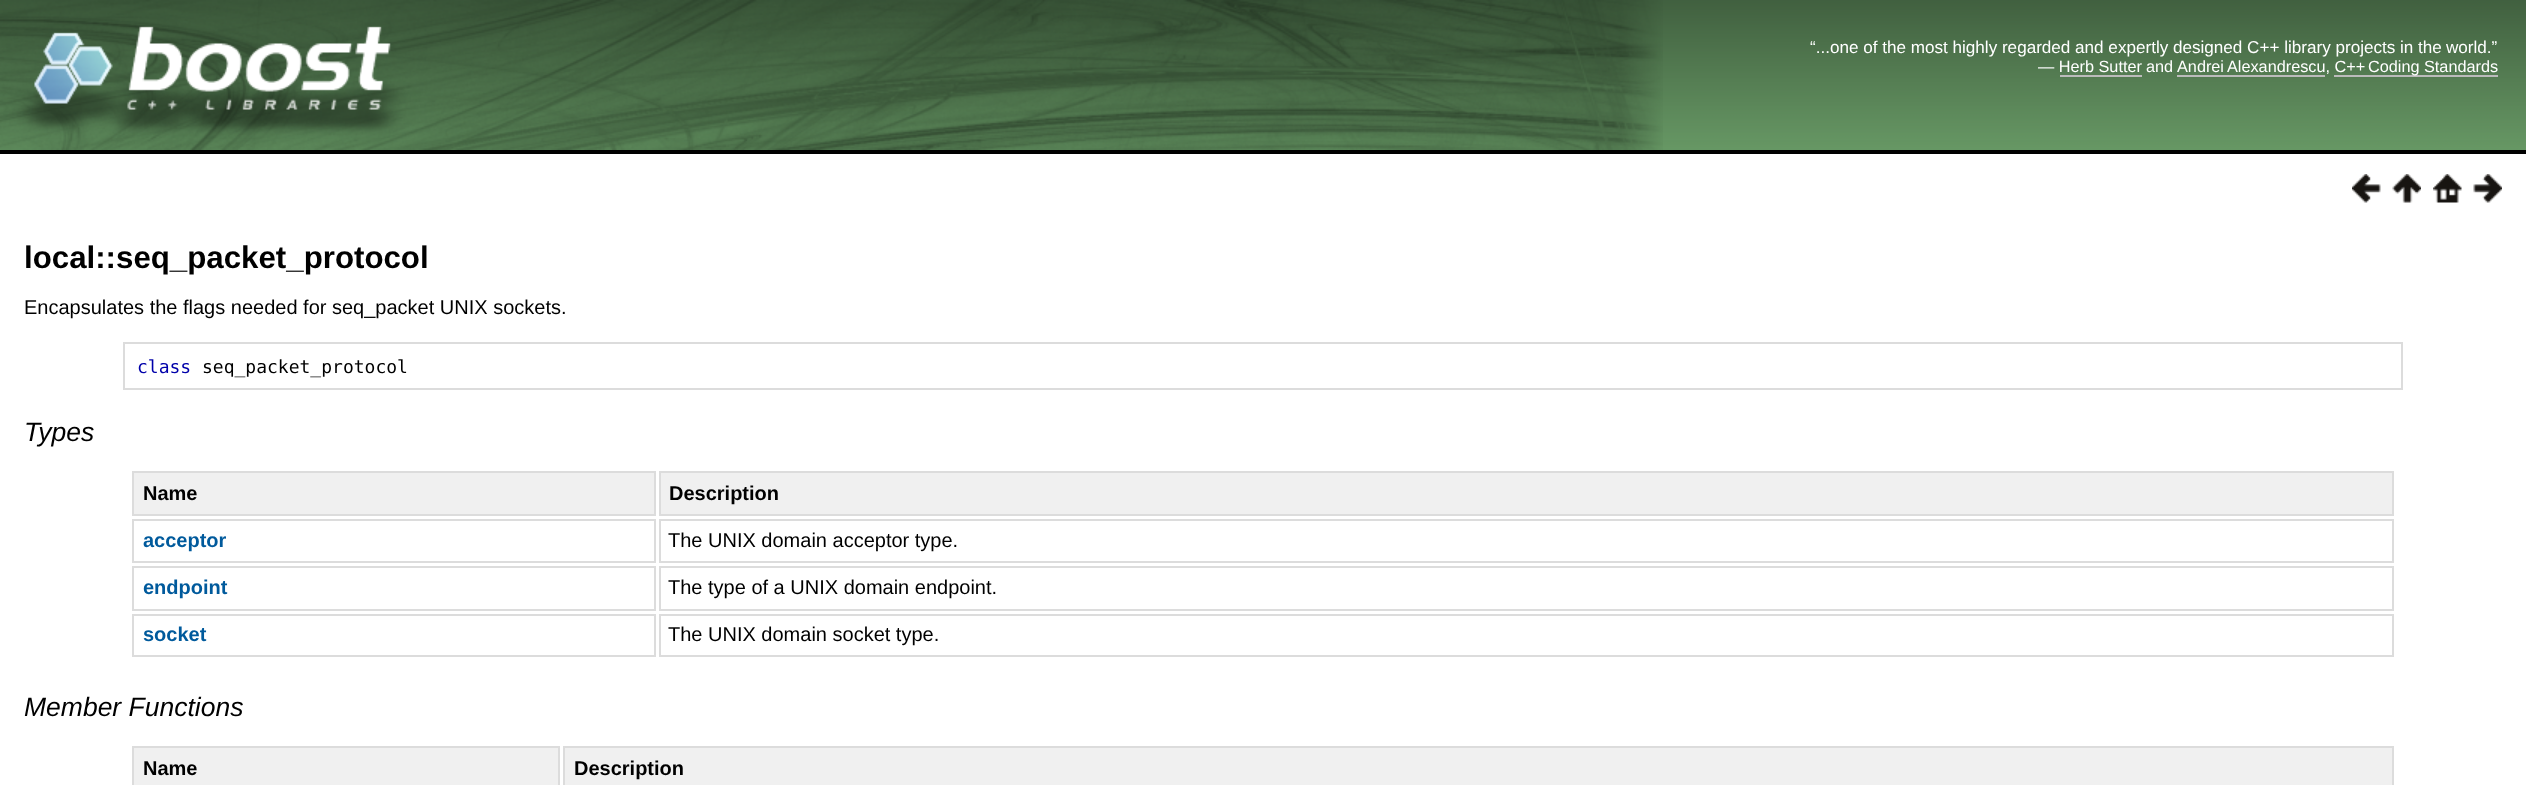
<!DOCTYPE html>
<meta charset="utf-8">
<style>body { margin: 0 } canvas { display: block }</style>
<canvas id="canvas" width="2526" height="785"></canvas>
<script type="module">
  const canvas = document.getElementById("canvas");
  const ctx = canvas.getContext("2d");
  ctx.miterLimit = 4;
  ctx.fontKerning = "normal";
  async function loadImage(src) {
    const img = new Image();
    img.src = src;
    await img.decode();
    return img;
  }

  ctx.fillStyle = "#ffffff";
  ctx.fillRect(0, 0, 2526, 785);
  ctx.drawImage(await loadImage("img1.png"), 1663, 0, 863, 150);
  ctx.fillStyle = "#000000";
  ctx.fillRect(0, 150, 2526, 4);
  ctx.drawImage(await loadImage("img2.png"), 0, 0, 1663, 150);
  ctx.font = "17.1px Liberation Sans";
  ctx.fillStyle = "#ffffff";
  ctx.fillText("“...one of the most highly regarded and expertly designed C++ library projects in the", 1810, 53);
  ctx.fillText("world.”", 2446, 53);
  ctx.font = "16.25px Liberation Sans";
  ctx.fillText("— Herb Sutter", 2038, 72);
  ctx.fillText("and", 2146, 72);
  ctx.fillText("Andrei", 2177, 72);
  ctx.fillText("Alexandrescu, C++", 2227, 72);
  ctx.fillStyle = "#bbbbbb";
  ctx.fillRect(2177, 75, 148, 2);
  ctx.fillRect(2334, 75, 164, 2);
  ctx.fillStyle = "#ffffff";
  ctx.fillText("Coding Standards", 2368, 72);
  ctx.fillStyle = "#bbbbbb";
  ctx.fillRect(2060, 75, 82, 2);
  ctx.drawImage(await loadImage("img3.png"), 2352, 174, 29, 29);
  ctx.drawImage(await loadImage("img4.png"), 2392, 174, 29, 29);
  ctx.drawImage(await loadImage("img5.png"), 2433, 174, 29, 29);
  ctx.drawImage(await loadImage("img6.png"), 2473, 174, 29, 29);
  ctx.font = "bold 31.25px Liberation Sans";
  ctx.fillStyle = "#000000";
  ctx.fillText("local::seq_packet_protocol", 24, 268);
  ctx.font = "20px Liberation Sans";
  ctx.fillText("Encapsulates the flags needed for seq_packet UNIX sockets.", 24, 314);
  ctx.strokeStyle = "#dcdcdc";
  ctx.lineWidth = 2;
  ctx.strokeRect(124, 343, 2278, 46);
  ctx.font = "18px DejaVu Sans Mono";
  ctx.fillStyle = "#0000aa";
  ctx.fillText("class", 137, 373);
  ctx.fillStyle = "#000000";
  ctx.fillText("seq_packet_protocol", 202, 373);
  ctx.font = "italic 26.5px Liberation Sans";
  ctx.fillText("Types", 24, 441);
  ctx.fillStyle = "#f0f0f0";
  ctx.beginPath();
  ctx.rect(133, 472, 522, 43);
  ctx.fill();
  ctx.stroke();
  ctx.font = "bold 20px Liberation Sans";
  ctx.fillStyle = "#000000";
  ctx.fillText("Name", 143, 500);
  ctx.fillStyle = "#f0f0f0";
  ctx.beginPath();
  ctx.rect(660, 472, 1733, 43);
  ctx.fill();
  ctx.stroke();
  ctx.fillStyle = "#000000";
  ctx.fillText("Description", 669, 500);
  ctx.strokeRect(133, 520, 522, 42);
  ctx.fillStyle = "#005a9c";
  ctx.fillText("acceptor", 143, 547);
  ctx.strokeRect(660, 520, 1733, 42);
  ctx.font = "20px Liberation Sans";
  ctx.fillStyle = "#000000";
  ctx.fillText("The UNIX domain acceptor type.", 668, 547);
  ctx.strokeRect(133, 567, 522, 43);
  ctx.font = "bold 20px Liberation Sans";
  ctx.fillStyle = "#005a9c";
  ctx.fillText("endpoint", 143, 594);
  ctx.strokeRect(660, 567, 1733, 43);
  ctx.font = "20px Liberation Sans";
  ctx.fillStyle = "#000000";
  ctx.fillText("The type of a UNIX domain endpoint.", 668, 594);
  ctx.strokeRect(133, 615, 522, 41);
  ctx.font = "bold 20px Liberation Sans";
  ctx.fillStyle = "#005a9c";
  ctx.fillText("socket", 143, 641);
  ctx.strokeRect(660, 615, 1733, 41);
  ctx.font = "20px Liberation Sans";
  ctx.fillStyle = "#000000";
  ctx.fillText("The UNIX domain socket type.", 668, 641);
  ctx.font = "italic 26.5px Liberation Sans";
  ctx.fillText("Member Functions", 24, 716);
  ctx.fillStyle = "#f0f0f0";
  ctx.beginPath();
  ctx.rect(133, 747, 426, 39);
  ctx.fill();
  ctx.stroke();
  ctx.font = "bold 20px Liberation Sans";
  ctx.fillStyle = "#000000";
  ctx.fillText("Name", 143, 775);
  ctx.fillStyle = "#f0f0f0";
  ctx.beginPath();
  ctx.rect(564, 747, 1829, 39);
  ctx.fill();
  ctx.stroke();
  ctx.fillStyle = "#000000";
  ctx.fillText("Description", 574, 775);
</script>
